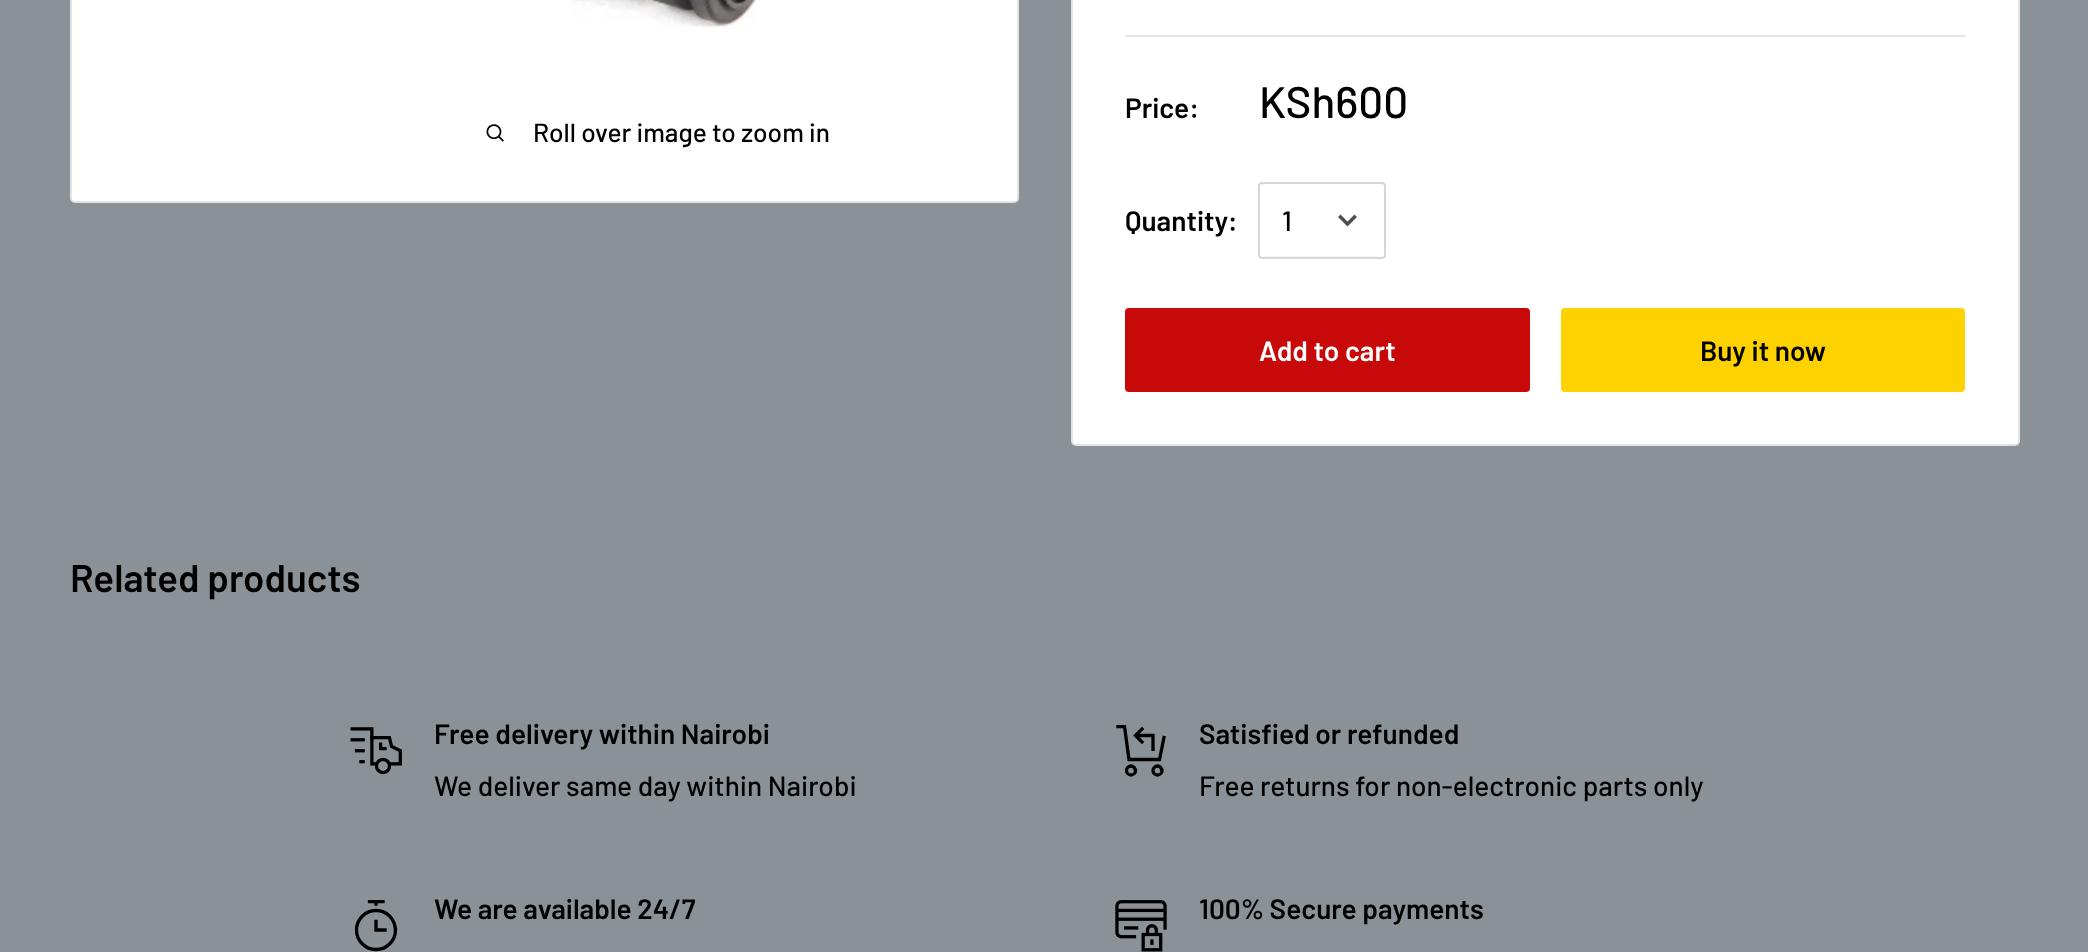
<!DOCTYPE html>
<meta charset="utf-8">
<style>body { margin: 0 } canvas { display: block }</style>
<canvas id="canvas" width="2088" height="952"></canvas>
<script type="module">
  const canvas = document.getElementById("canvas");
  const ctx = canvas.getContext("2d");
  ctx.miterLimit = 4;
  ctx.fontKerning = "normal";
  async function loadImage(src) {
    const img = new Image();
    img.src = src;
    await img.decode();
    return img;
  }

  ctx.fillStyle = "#8a9297";
  ctx.fillRect(0, 0, 2088, 952);
  ctx.fillStyle = "#ffffff";
  ctx.beginPath();
  ctx.roundRect(71, -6, 947, 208, 4);
  ctx.fill();
  ctx.strokeStyle = "#e1e3e4";
  ctx.lineWidth = 2;
  ctx.stroke();
  ctx.drawImage(await loadImage("img1.png"), 571, 0, 186, 28);
  ctx.drawImage(await loadImage("img2.png"), 486, 124, 18, 18);
  ctx.font = "500 26.25px Barlow";
  ctx.fillStyle = "#000000";
  ctx.fillText("Roll over image to zoom in", 533, 142);
  ctx.fillStyle = "#ffffff";
  ctx.beginPath();
  ctx.roundRect(1072, -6, 947, 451, 4);
  ctx.fill();
  ctx.stroke();
  ctx.fillStyle = "#e1e3e4";
  ctx.fillRect(1125, 35, 840, 2);
  ctx.font = "600 28px Barlow";
  ctx.fillStyle = "#000000";
  ctx.fillText("Price:", 1125, 118);
  ctx.font = "500 44px Barlow";
  ctx.fillText("KSh600", 1259, 118);
  ctx.font = "600 28px Barlow";
  ctx.fillText("Quantity:", 1125, 231);
  ctx.fillStyle = "#f6f7f7";
  ctx.beginPath();
  ctx.moveTo(1260, 254);
  ctx.bezierCurveTo(1260, 255, 1260, 256, 1261, 257);
  ctx.lineTo(1362, 257);
  ctx.bezierCurveTo(1368, 257, 1384, 262, 1384, 254);
  ctx.bezierCurveTo(1384, 255, 1383, 256, 1382, 256);
  ctx.lineTo(1262, 256);
  ctx.lineTo(1260, 255);
  ctx.closePath();
  ctx.fill();
  ctx.beginPath();
  ctx.roundRect(1259, 183, 126, 75, 3);
  ctx.strokeStyle = "#d4d6d8";
  ctx.stroke();
  ctx.font = "500 28px Barlow";
  ctx.fillStyle = "#000000";
  ctx.fillText("1", 1282, 231);
  ctx.beginPath();
  ctx.moveTo(1354.5, 217);
  ctx.lineTo(1347.5, 224);
  ctx.lineTo(1340.5, 217);
  ctx.strokeStyle = "#4d4d4d";
  ctx.lineWidth = 3.5;
  ctx.lineCap = "square";
  ctx.stroke();
  ctx.fillStyle = "#c70909";
  ctx.beginPath();
  ctx.roundRect(1125, 308, 405, 84, 4);
  ctx.fill();
  ctx.font = "600 28px Barlow";
  ctx.fillStyle = "#ffffff";
  ctx.fillText("Add to cart", 1259, 361);
  ctx.fillStyle = "#fdd200";
  ctx.beginPath();
  ctx.roundRect(1561, 308, 404, 84, 4);
  ctx.fill();
  ctx.fillStyle = "#000000";
  ctx.fillText("Buy it now", 1700, 361);
  ctx.font = "600 38.5px Barlow";
  ctx.fillText("Related products", 70, 592);
  ctx.drawImage(await loadImage("img3.png"), 350, 727, 52, 48);
  ctx.font = "600 28px Barlow";
  ctx.fillText("Free delivery within Nairobi", 434, 744);
  ctx.font = "500 28px Barlow";
  ctx.fillText("We deliver same day within Nairobi", 434, 796);
  ctx.beginPath();
  ctx.moveTo(1135.5, 735.5);
  ctx.lineTo(1153, 735.5);
  ctx.lineTo(1153, 751);
  ctx.strokeStyle = "#000000";
  ctx.lineWidth = 3.3;
  ctx.lineCap = "butt";
  ctx.stroke();
  ctx.beginPath();
  ctx.moveTo(1142, 742);
  ctx.lineTo(1135.5, 735.5);
  ctx.lineTo(1142, 729);
  ctx.lineCap = "square";
  ctx.stroke();
  ctx.save();
  ctx.beginPath();
  ctx.rect(1115, 725, 52, 52);
  ctx.clip();
  ctx.beginPath();
  ctx.moveTo(1164, 737.5);
  ctx.lineTo(1159.5, 759.5);
  ctx.lineTo(1129, 759.5);
  ctx.lineTo(1124.5, 726.5);
  ctx.lineTo(1118, 726.5);
  ctx.stroke();
  ctx.restore();
  ctx.beginPath();
  ctx.arc(1131, 770.5, 4.5, 0, Math.PI * 2);
  ctx.stroke();
  ctx.beginPath();
  ctx.arc(1157.5, 770.5, 4.5, 0, Math.PI * 2);
  ctx.stroke();
  ctx.font = "600 28px Barlow";
  ctx.fillText("Satisfied or refunded", 1199, 744);
  ctx.font = "500 28px Barlow";
  ctx.fillText("Free returns for non-electronic parts only", 1199, 796);
  ctx.save();
  ctx.beginPath();
  ctx.rect(350, 900, 53, 52);
  ctx.clip();
  ctx.beginPath();
  ctx.moveTo(369.5, 901.5);
  ctx.lineTo(383, 901.5);
  ctx.moveTo(376, 901.5);
  ctx.lineTo(376, 904);
  ctx.stroke();
  ctx.restore();
  ctx.beginPath();
  ctx.moveTo(376, 921.5);
  ctx.lineTo(376, 930);
  ctx.lineTo(385, 930);
  ctx.stroke();
  ctx.beginPath();
  ctx.arc(376, 930, 19.5, 0, Math.PI * 2);
  ctx.stroke();
  ctx.font = "600 28px Barlow";
  ctx.fillText("We are available 24/7", 434, 919);
  ctx.drawImage(await loadImage("img4.png"), 1115, 900, 52, 52);
  ctx.fillText("100% Secure payments", 1199, 919);
</script>
